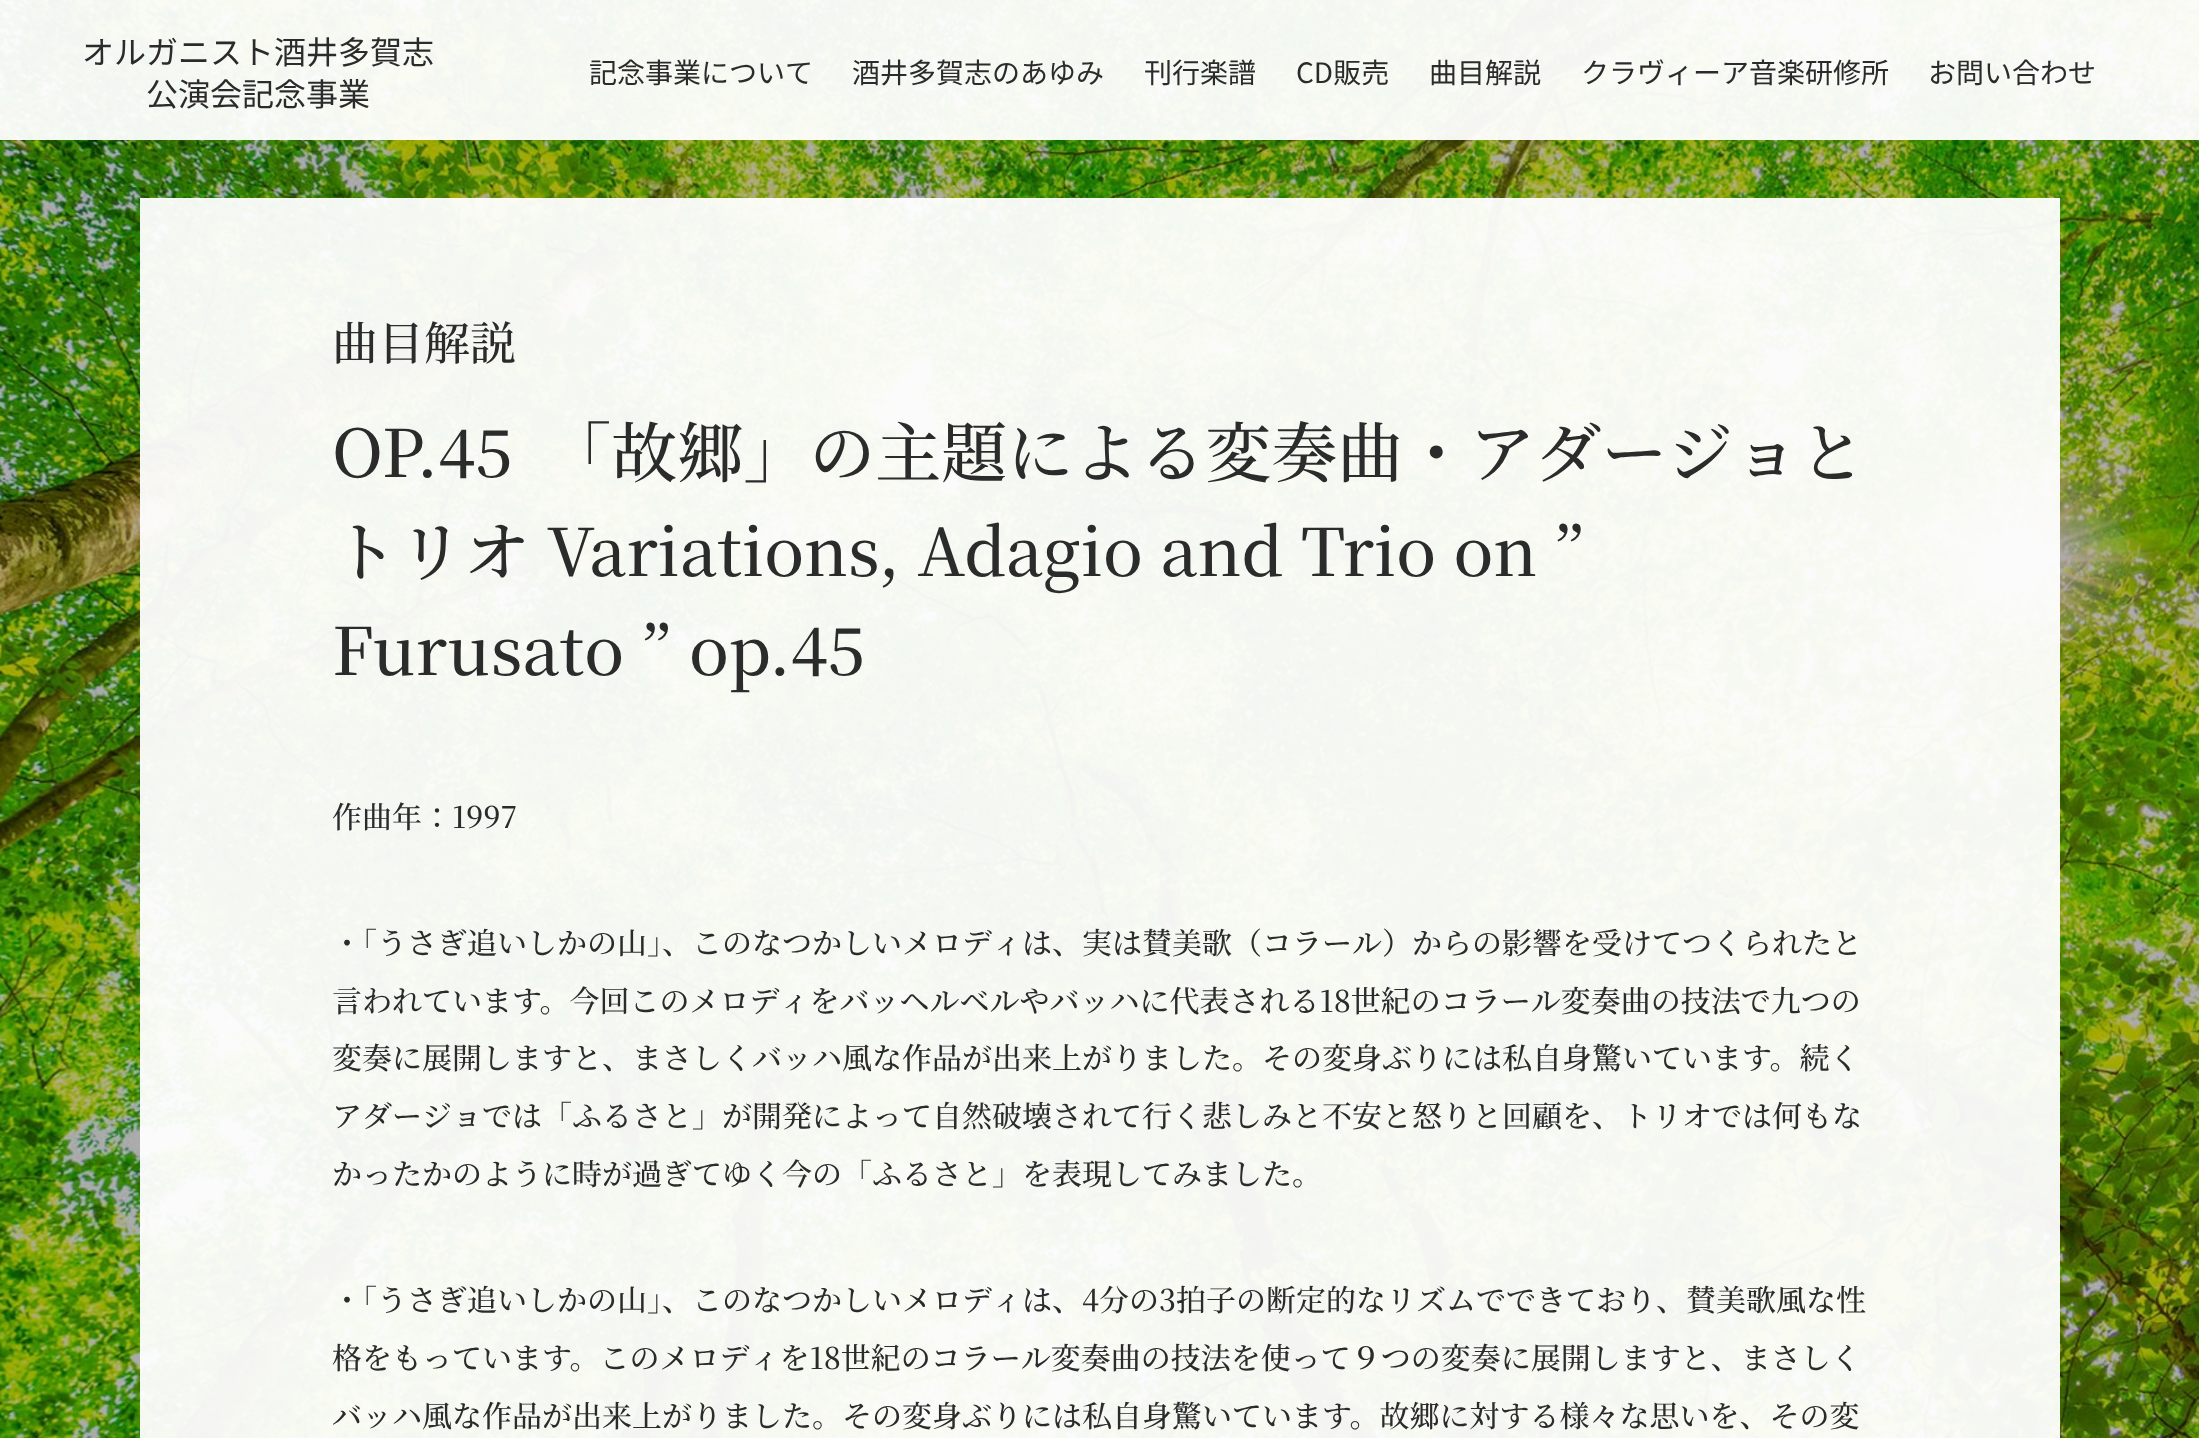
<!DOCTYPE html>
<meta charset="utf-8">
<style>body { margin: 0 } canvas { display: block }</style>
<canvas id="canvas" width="2199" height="1438"></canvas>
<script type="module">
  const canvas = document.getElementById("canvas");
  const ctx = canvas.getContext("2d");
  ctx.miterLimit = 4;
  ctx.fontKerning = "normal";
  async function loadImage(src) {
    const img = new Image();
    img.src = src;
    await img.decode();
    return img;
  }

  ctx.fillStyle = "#ffffff";
  ctx.fillRect(0, 0, 2199, 1438);
  ctx.drawImage(await loadImage("img1.png"), 0, 0, 2199, 1438);
  ctx.fillStyle = "rgba(255, 255, 255, 0.95)";
  ctx.fillRect(0, 0, 2199, 140);
  ctx.font = "32px Noto Sans JP";
  ctx.fillStyle = "#2b2b2b";
  ctx.fillText("オルガニスト酒井多賀志", 82, 64);
  ctx.fillText("公演会記念事業", 146, 106);
  ctx.font = "28px Noto Sans JP";
  ctx.fillText("記念事業について", 589, 83);
  ctx.fillText("酒井多賀志のあゆみ", 852, 83);
  ctx.fillText("刊行楽譜", 1144, 83);
  ctx.fillText("CD販売", 1296, 83);
  ctx.fillText("曲目解説", 1429, 83);
  ctx.fillText("クラヴィーア音楽研修所", 1581, 83);
  ctx.fillText("お問い合わせ", 1928, 83);
  ctx.fillStyle = "rgba(255, 255, 255, 0.95)";
  ctx.fillRect(140, 198, 1920, 1240);
  ctx.font = "500 46px Noto Serif JP";
  ctx.fillStyle = "#2b2b2b";
  ctx.fillText("曲目解説", 332, 360);
  ctx.font = "500 66px Noto Serif JP";
  ctx.fillText("OP.45　「故郷」の主題による変奏曲・アダージョと", 332, 477);
  ctx.wordSpacing = "0.5px";
  ctx.fillText("トリオ Variations, Adagio and Trio on ”", 332, 576);
  ctx.wordSpacing = "1px";
  ctx.fillText("Furusato ”", 332, 675);
  ctx.wordSpacing = "0px";
  ctx.fillText("op.45", 689, 675);
  ctx.font = "500 30px Noto Serif JP";
  ctx.fillText("作曲年：1997", 332, 828);
  ctx.fillText("・「うさぎ追いしかの山」、このなつかしいメロディは、実は賛美歌（コラール）からの影響を受けてつくられたと", 332, 954);
  ctx.fillText("言われています。今回このメロディをバッヘルベルやバッハに代表される18世紀のコラール変奏曲の技法で九つの", 332, 1012);
  ctx.fillText("変奏に展開しますと、まさしくバッハ風な作品が出来上がりました。その変身ぶりには私自身驚いています。続く", 332, 1069);
  ctx.fillText("アダージョでは「ふるさと」が開発によって自然破壊されて行く悲しみと不安と怒りと回顧を、トリオでは何もな", 332, 1127);
  ctx.fillText("かったかのように時が過ぎてゆく今の「ふるさと」を表現してみました。", 332, 1185);
  ctx.fillText("・「うさぎ追いしかの山」、このなつかしいメロディは、4分の3拍子の断定的なリズムでできており、賛美歌風な性", 332, 1311);
  ctx.fillText("格をもっています。このメロディを18世紀のコラール変奏曲の技法を使って９つの変奏に展開しますと、まさしく", 332, 1369);
  ctx.fillText("バッハ風な作品が出来上がりました。その変身ぶりには私自身驚いています。故郷に対する様々な思いを、その変", 332, 1427);
</script>
